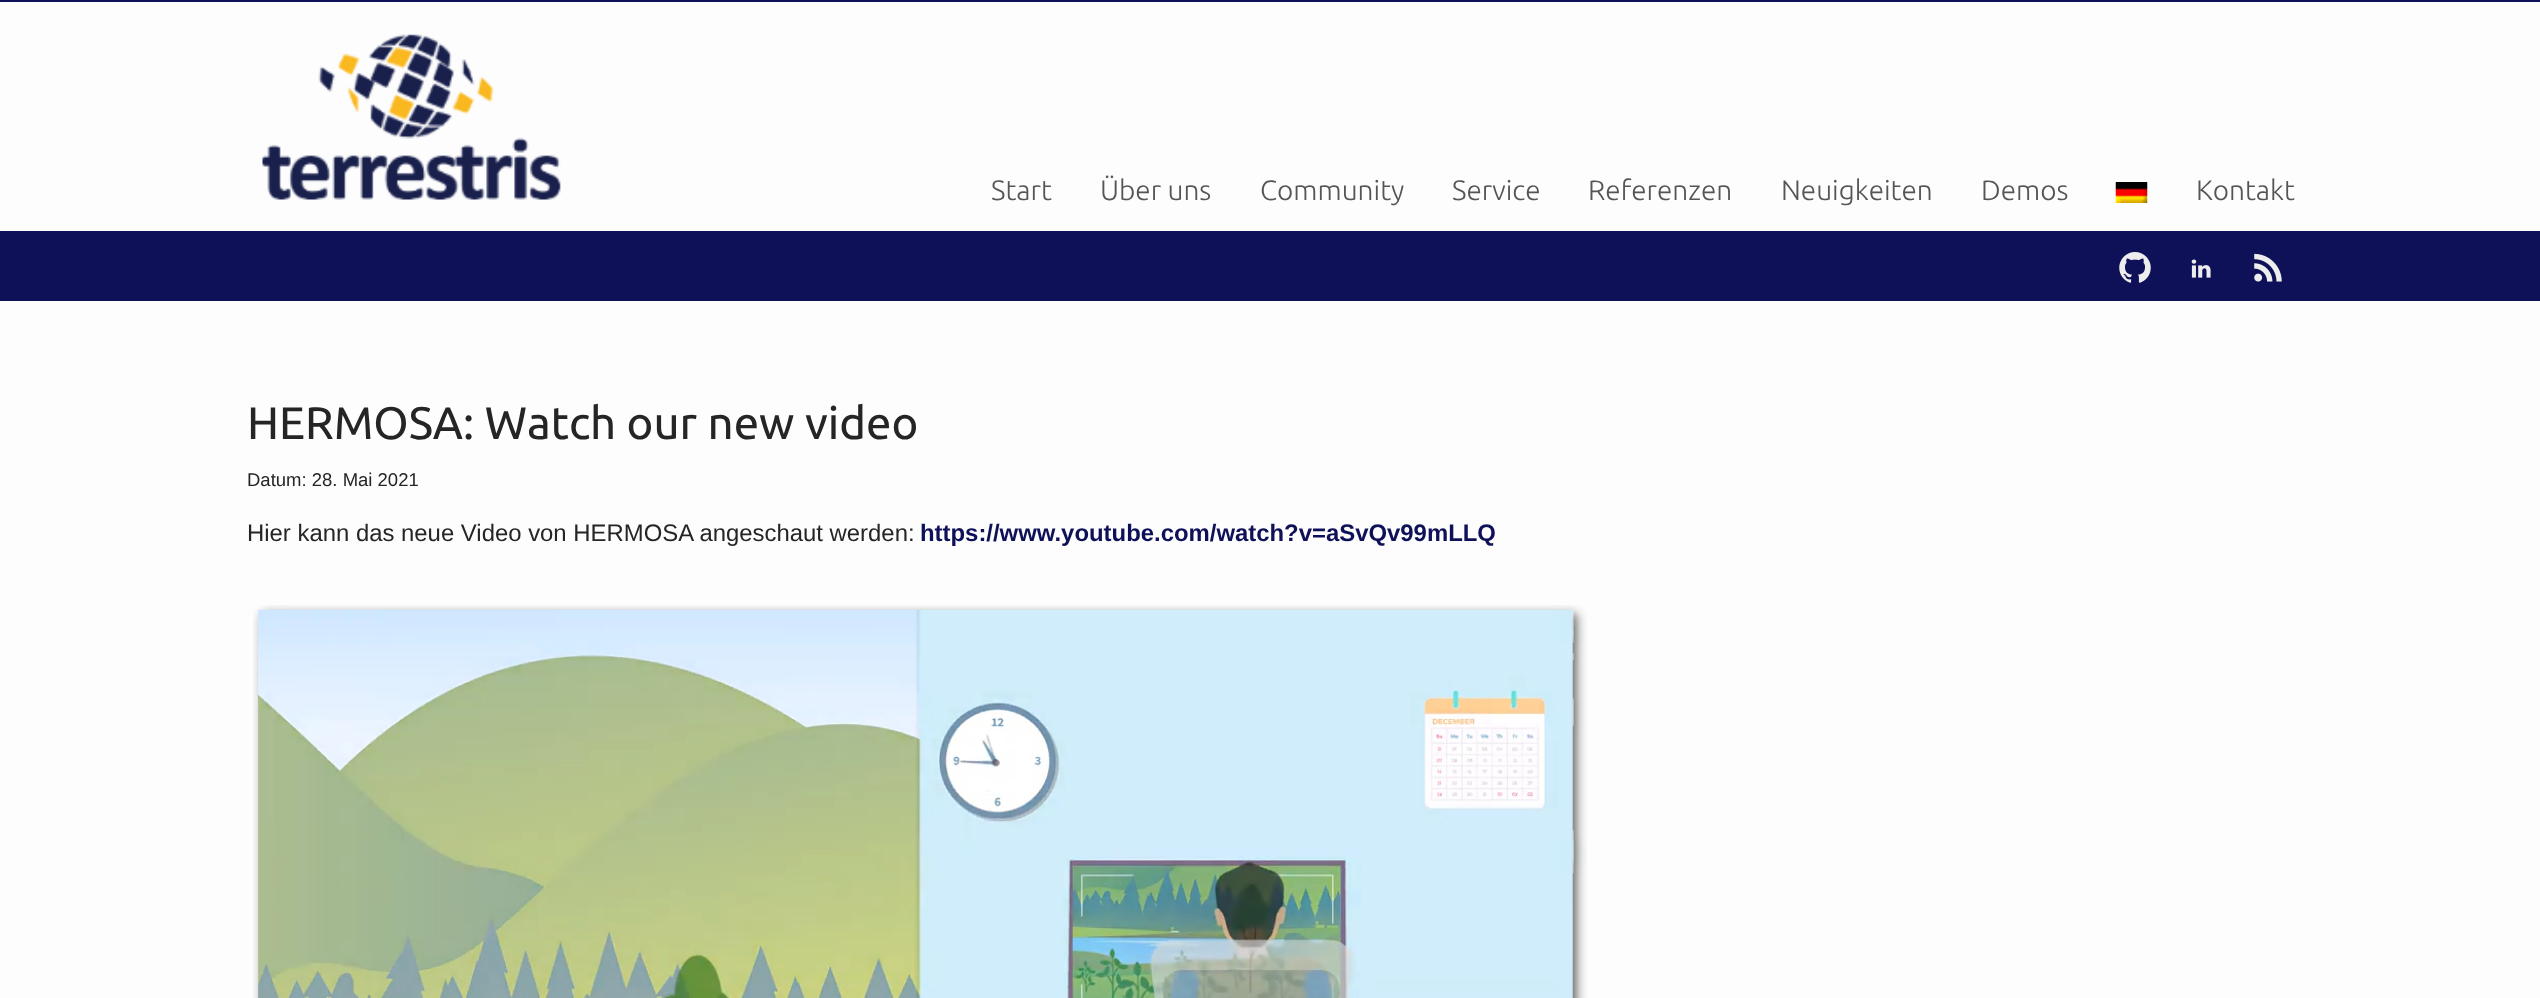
<!DOCTYPE html>
<meta charset="utf-8">
<style>body { margin: 0 } canvas { display: block }</style>
<canvas id="canvas" width="2540" height="998"></canvas>
<script type="module">
  const canvas = document.getElementById("canvas");
  const ctx = canvas.getContext("2d");
  ctx.miterLimit = 4;
  ctx.fontKerning = "normal";
  async function loadImage(src) {
    const img = new Image();
    img.src = src;
    await img.decode();
    return img;
  }

  ctx.fillStyle = "#fdfdfd";
  ctx.fillRect(0, 0, 2540, 998);
  ctx.fillStyle = "#0e1058";
  ctx.fillRect(0, 0, 2540, 2);
  ctx.drawImage(await loadImage("img1.png"), 262, 34, 299, 166);
  ctx.font = "300 28px Ubuntu";
  ctx.fillStyle = "#555555";
  ctx.fillText("Start", 991, 200);
  ctx.fillText("Über uns", 1100, 200);
  ctx.fillText("Community", 1260, 200);
  ctx.fillText("Service", 1452, 200);
  ctx.fillText("Referenzen", 1588, 200);
  ctx.fillText("Neuigkeiten", 1781, 200);
  ctx.fillText("Demos", 1981, 200);
  ctx.drawImage(await loadImage("img2.png"), 2115, 182, 33, 21);
  ctx.fillText("Kontakt", 2196, 200);
  ctx.fillStyle = "#0e1058";
  ctx.fillRect(0, 231, 2540, 70);
  ctx.drawImage(await loadImage("img3.png"), 2119, 252, 32, 31);
  ctx.drawImage(await loadImage("img4.png"), 2191, 259, 20, 19);
  ctx.drawImage(await loadImage("img5.png"), 2254, 253, 28, 29);
  ctx.font = "45.5px Ubuntu";
  ctx.fillStyle = "#252525";
  ctx.fillText("HERMOSA: Watch our new video", 247, 439);
  ctx.font = "18.5px Liberation Sans";
  ctx.fillText("Datum: 28. Mai 2021", 247, 486);
  ctx.font = "23.9px Liberation Sans";
  ctx.fillText("Hier kann das neue Video von HERMOSA angeschaut werden:", 247, 541);
  ctx.font = "bold 23.9px Liberation Sans";
  ctx.fillStyle = "#0e1058";
  ctx.fillText("https://www.youtube.com/watch?v=aSvQv99mLLQ", 920, 541);
  ctx.drawImage(await loadImage("img6.png"), 253, 605, 1334, 393);
</script>
